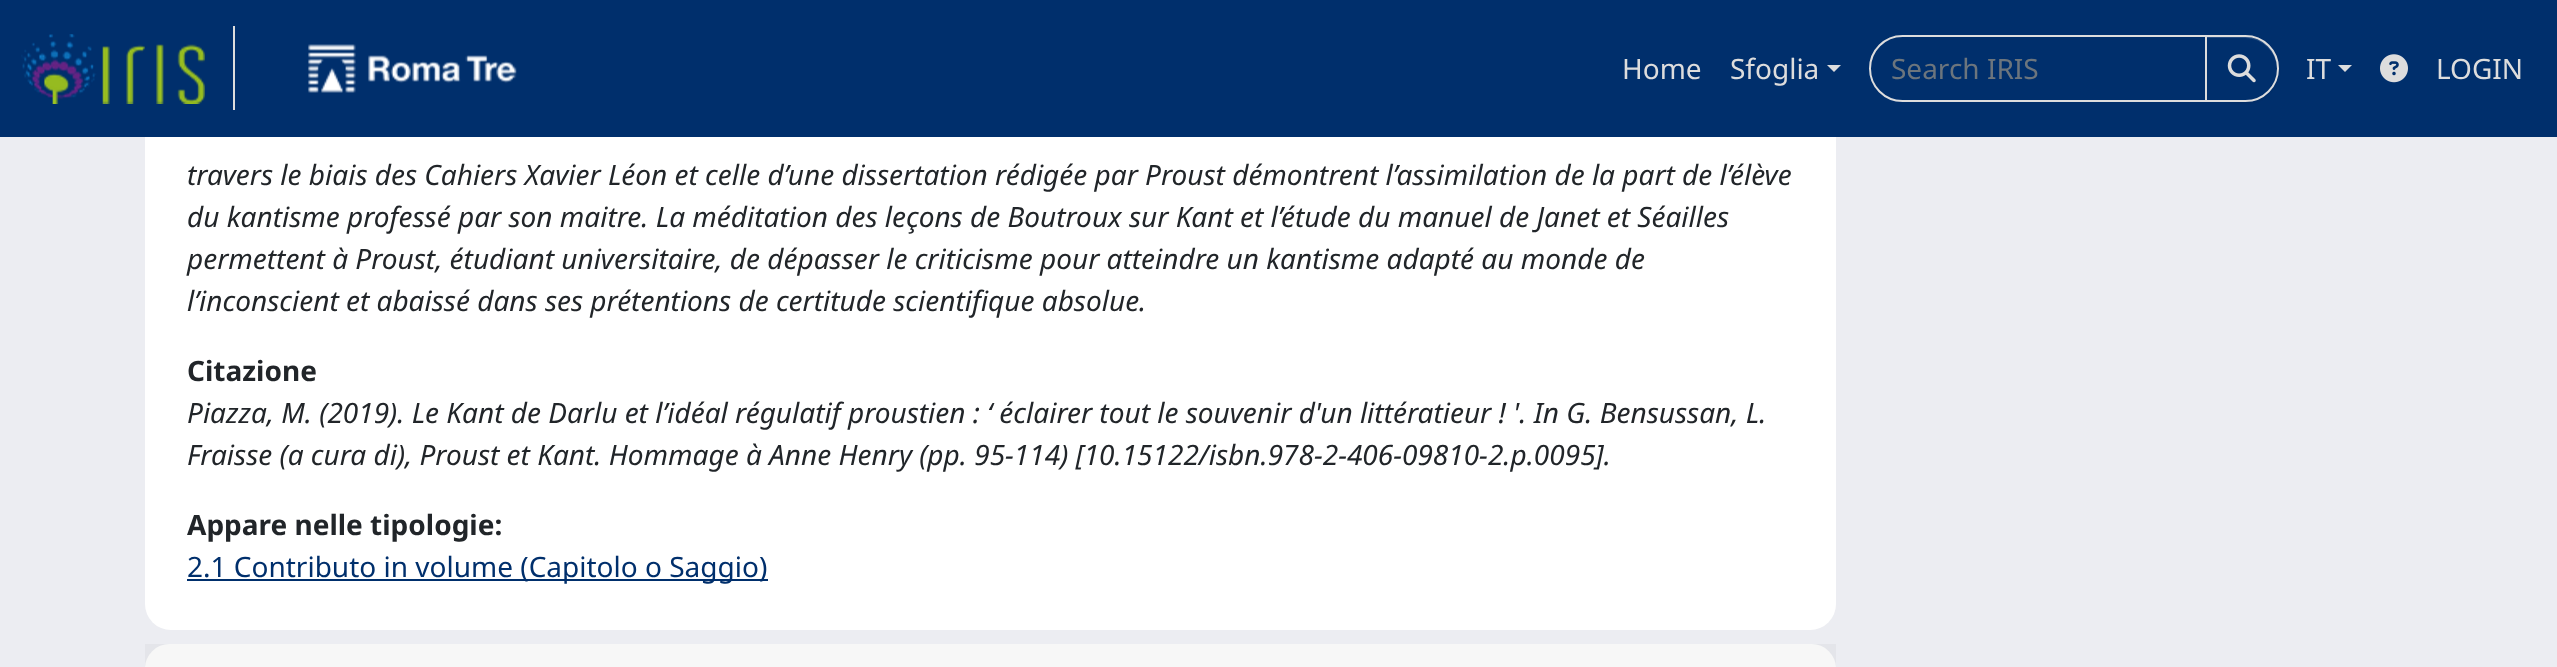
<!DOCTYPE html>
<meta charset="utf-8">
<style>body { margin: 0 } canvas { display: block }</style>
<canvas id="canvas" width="2557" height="667"></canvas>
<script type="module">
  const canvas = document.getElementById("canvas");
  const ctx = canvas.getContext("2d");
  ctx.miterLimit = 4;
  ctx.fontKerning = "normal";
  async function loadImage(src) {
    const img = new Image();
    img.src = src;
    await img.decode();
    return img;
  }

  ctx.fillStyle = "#ecedf2";
  ctx.fillRect(0, 0, 2557, 667);
  ctx.fillStyle = "#ffffff";
  ctx.beginPath();
  ctx.roundRect(145, -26, 1691, 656, 26);
  ctx.fill();
  ctx.fillStyle = "#002f6c";
  ctx.fillRect(0, 0, 2557, 137);
  ctx.fillStyle = "#dddddd";
  ctx.fillRect(233, 26, 2, 84);
  ctx.drawImage(await loadImage("img1.png"), 21, 34, 184, 70);
  ctx.drawImage(await loadImage("img2.png"), 308, 44, 209, 49);
  ctx.font = "28px Noto Sans";
  ctx.fillText("Home", 1622, 79);
  ctx.fillText("Sfoglia", 1730, 79);
  ctx.beginPath();
  ctx.moveTo(1827, 65);
  ctx.lineTo(1841, 65);
  ctx.lineTo(1834, 72);
  ctx.closePath();
  ctx.fill();
  ctx.beginPath();
  ctx.roundRect(1870, 36, 336, 65, [32.5, 0, 0, 32.5]);
  ctx.strokeStyle = "#dddddd";
  ctx.lineWidth = 2;
  ctx.stroke();
  ctx.fillStyle = "#6c757d";
  ctx.fillText("Search IRIS", 1891, 79);
  ctx.fillStyle = "rgba(0, 0, 0, 0.07)";
  ctx.filter = "blur(1px)";
  ctx.beginPath();
  ctx.roundRect(2205, 37, 74, 66, 33);
  ctx.fill();
  ctx.filter = "none";
  ctx.fillStyle = "#002f6c";
  ctx.beginPath();
  ctx.roundRect(2205, 35, 74, 67, [0, 33.5, 33.5, 0]);
  ctx.fill();
  ctx.fillStyle = "#264e82";
  ctx.beginPath();
  ctx.moveTo(2207, 38);
  ctx.lineTo(2245, 38);
  ctx.bezierCurveTo(2263, 38, 2277, 53, 2277, 69);
  ctx.lineTo(2277, 68);
  ctx.bezierCurveTo(2277, 51, 2263, 37, 2246, 37);
  ctx.lineTo(2207, 37);
  ctx.closePath();
  ctx.fill();
  ctx.beginPath();
  ctx.roundRect(2206, 36, 72, 65, [0, 32.5, 32.5, 0]);
  ctx.stroke();
  ctx.drawImage(await loadImage("img3.png"), 2227, 54, 29, 29);
  ctx.fillStyle = "#dddddd";
  ctx.fillText("IT", 2306, 79);
  ctx.beginPath();
  ctx.moveTo(2338, 65);
  ctx.lineTo(2352, 65);
  ctx.lineTo(2345, 72);
  ctx.closePath();
  ctx.fill();
  ctx.drawImage(await loadImage("img4.png"), 2380, 54, 28, 29);
  ctx.fillText("LOGIN", 2436, 79);
  ctx.font = "italic 28px Noto Sans";
  ctx.fillStyle = "#212529";
  ctx.fillText("travers le biais des Cahiers Xavier Léon et celle d’une dissertation rédigée par Proust démontrent l’assimilation de la part de l’élève", 187, 185);
  ctx.fillText("du kantisme professé par son maitre. La méditation des leçons de Boutroux sur Kant et l’étude du manuel de Janet et Séailles", 187, 227);
  ctx.fillText("permettent à Proust, étudiant universitaire, de dépasser le criticisme pour atteindre un kantisme adapté au monde de", 187, 269);
  ctx.fillText("l’inconscient et abaissé dans ses prétentions de certitude scientifique absolue.", 187, 311);
  ctx.font = "bold 28px Noto Sans";
  ctx.fillText("Citazione", 187, 381);
  ctx.font = "italic 28px Noto Sans";
  ctx.fillText("Piazza, M. (2019). Le Kant de Darlu et l’idéal régulatif proustien : ‘ éclairer tout le souvenir d'un littératieur ! '. In G. Bensussan, L.", 187, 423);
  ctx.fillText("Fraisse (a cura di), Proust et Kant. Hommage à Anne Henry (pp. 95-114) [10.15122/isbn.978-2-406-09810-2.p.0095].", 187, 465);
  ctx.font = "bold 28px Noto Sans";
  ctx.fillText("Appare nelle tipologie:", 187, 535);
  ctx.fillStyle = "#002f6c";
  ctx.fillRect(187, 579, 581, 2);
  ctx.font = "28px Noto Sans";
  ctx.fillText("2.1 Contributo in volume (Capitolo o Saggio)", 187, 577);
  ctx.fillStyle = "#ffffff";
  ctx.beginPath();
  ctx.roundRect(145, 644, 1691, 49, 26);
  ctx.fill();
  ctx.fillStyle = "rgba(0, 0, 0, 0.03)";
  ctx.fillRect(145, 644, 1691, 23);
</script>
